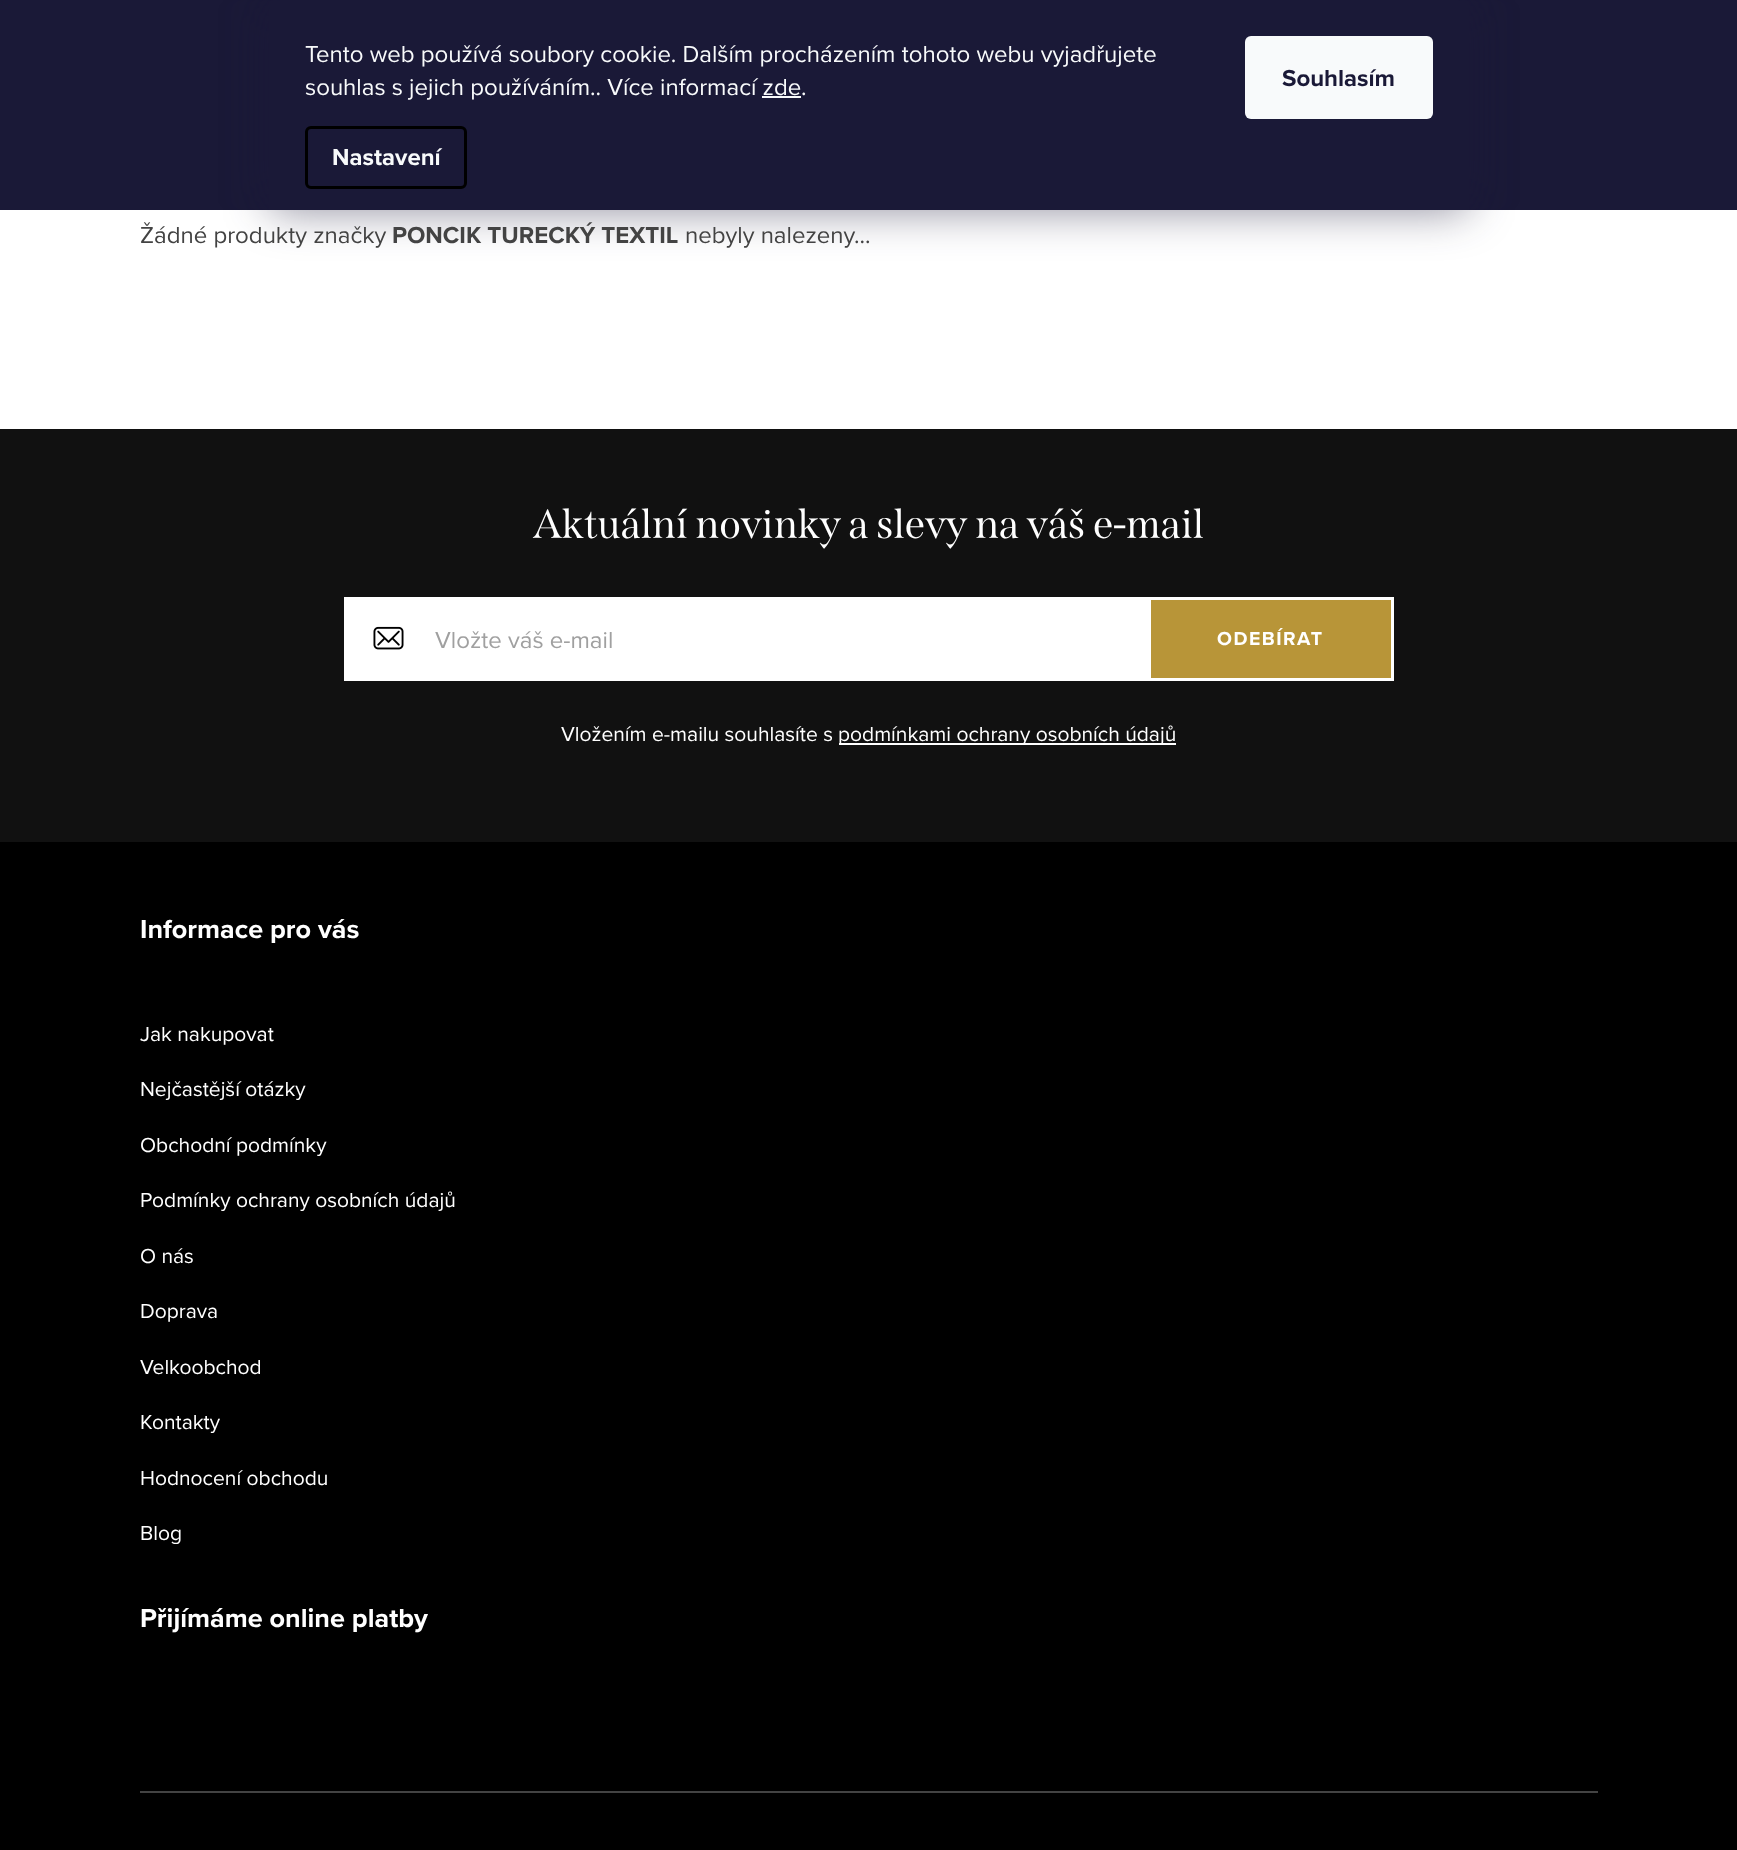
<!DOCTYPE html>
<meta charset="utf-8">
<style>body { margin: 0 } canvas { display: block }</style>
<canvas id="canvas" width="1737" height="1850"></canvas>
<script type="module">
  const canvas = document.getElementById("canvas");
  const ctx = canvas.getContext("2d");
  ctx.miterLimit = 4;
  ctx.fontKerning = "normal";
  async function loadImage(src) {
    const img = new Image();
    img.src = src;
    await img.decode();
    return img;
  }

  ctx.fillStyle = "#ffffff";
  ctx.fillRect(0, 0, 1737, 1850);
  ctx.fillStyle = "#1a1937";
  ctx.fillRect(0, 0, 1737, 210);
  ctx.save();
  ctx.beginPath();
  ctx.moveTo(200, 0);
  ctx.lineTo(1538, 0);
  ctx.lineTo(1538, 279);
  ctx.lineTo(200, 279);
  ctx.closePath();
  ctx.moveTo(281, 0);
  ctx.lineTo(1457, 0);
  ctx.bezierCurveTo(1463.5, 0, 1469, 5.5, 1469, 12);
  ctx.lineTo(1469, 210);
  ctx.lineTo(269, 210);
  ctx.lineTo(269, 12);
  ctx.bezierCurveTo(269, 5.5, 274.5, 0, 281, 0);
  ctx.closePath();
  ctx.clip("evenodd");
  ctx.fillStyle = "rgba(27, 25, 57, 0.5)";
  ctx.filter = "blur(22.5px)";
  ctx.beginPath();
  ctx.roundRect(269, 0, 1200, 210, 12);
  ctx.fill();
  ctx.filter = "none";
  ctx.restore();
  ctx.font = "24px Proxima Nova";
  ctx.fillStyle = "#f8fafb";
  ctx.fillText("Tento web používá soubory cookie. Dalším procházením tohoto webu vyjadřujete", 305, 62);
  ctx.fillText("souhlas s jejich používáním.. Více informací zde.", 305, 95);
  ctx.fillRect(762, 96, 39, 2);
  ctx.beginPath();
  ctx.roundRect(306.5, 127.5, 159, 60, 4.5);
  ctx.strokeStyle = "#000000";
  ctx.lineWidth = 3;
  ctx.stroke();
  ctx.font = "bold 24px Proxima Nova";
  ctx.fillText("Nastavení", 332, 165);
  ctx.beginPath();
  ctx.roundRect(1245, 36, 188, 83, 6);
  ctx.fill();
  ctx.fillStyle = "#1a1937";
  ctx.fillText("Souhlasím", 1282, 86);
  ctx.font = "24px Proxima Nova";
  ctx.fillStyle = "#434343";
  ctx.fillText("Žádné produkty značky", 140, 243);
  ctx.font = "bold 24px Proxima Nova";
  ctx.fillText("PONCIK TURECKÝ TEXTIL", 392, 243);
  ctx.font = "24px Proxima Nova";
  ctx.fillText("nebyly nalezeny...", 685, 243);
  ctx.fillStyle = "#111111";
  ctx.fillRect(0, 429, 1737, 413);
  ctx.font = "40.5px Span";
  ctx.fillStyle = "#ffffff";
  ctx.fillText("Aktuální novinky a slevy na váš e-mail", 533, 538);
  ctx.fillRect(344, 597, 1050, 84);
  ctx.drawImage(await loadImage("img1.png"), 373, 626, 31, 24);
  ctx.font = "24px Proxima Nova";
  ctx.fillStyle = "#a0a0a0";
  ctx.fillText("Vložte váš e-mail", 435, 648);
  ctx.fillStyle = "#b89538";
  ctx.fillRect(1151, 600, 240, 78);
  ctx.letterSpacing = "1.5px";
  ctx.font = "bold 19.5px Proxima Nova";
  ctx.fillStyle = "#ffffff";
  ctx.fillText("ODEBÍRAT", 1217, 645);
  ctx.letterSpacing = "0px";
  ctx.font = "21px Proxima Nova";
  ctx.fillText("Vložením e-mailu souhlasíte s", 561, 741);
  ctx.fillRect(839, 743, 337, 2);
  ctx.fillText("podmínkami ochrany osobních údajů", 838, 741);
  ctx.fillStyle = "#000000";
  ctx.fillRect(0, 842, 1737, 1008);
  ctx.font = "bold 27px Proxima Nova";
  ctx.fillStyle = "#ffffff";
  ctx.fillText("Informace pro vás", 140, 938);
  ctx.font = "21px Proxima Nova";
  ctx.fillText("Jak nakupovat", 140, 1041);
  ctx.fillText("Nejčastější otázky", 140, 1096);
  ctx.fillText("Obchodní podmínky", 140, 1152);
  ctx.fillText("Podmínky ochrany osobních údajů", 140, 1207);
  ctx.fillText("O nás", 140, 1263);
  ctx.fillText("Doprava", 140, 1318);
  ctx.fillText("Velkoobchod", 140, 1374);
  ctx.fillText("Kontakty", 140, 1429);
  ctx.fillText("Hodnocení obchodu", 140, 1485);
  ctx.fillText("Blog", 140, 1540);
  ctx.font = "bold 27px Proxima Nova";
  ctx.fillText("Přijímáme online platby", 140, 1627);
  ctx.fillStyle = "#434343";
  ctx.fillRect(140, 1791, 1458, 2);
</script>
